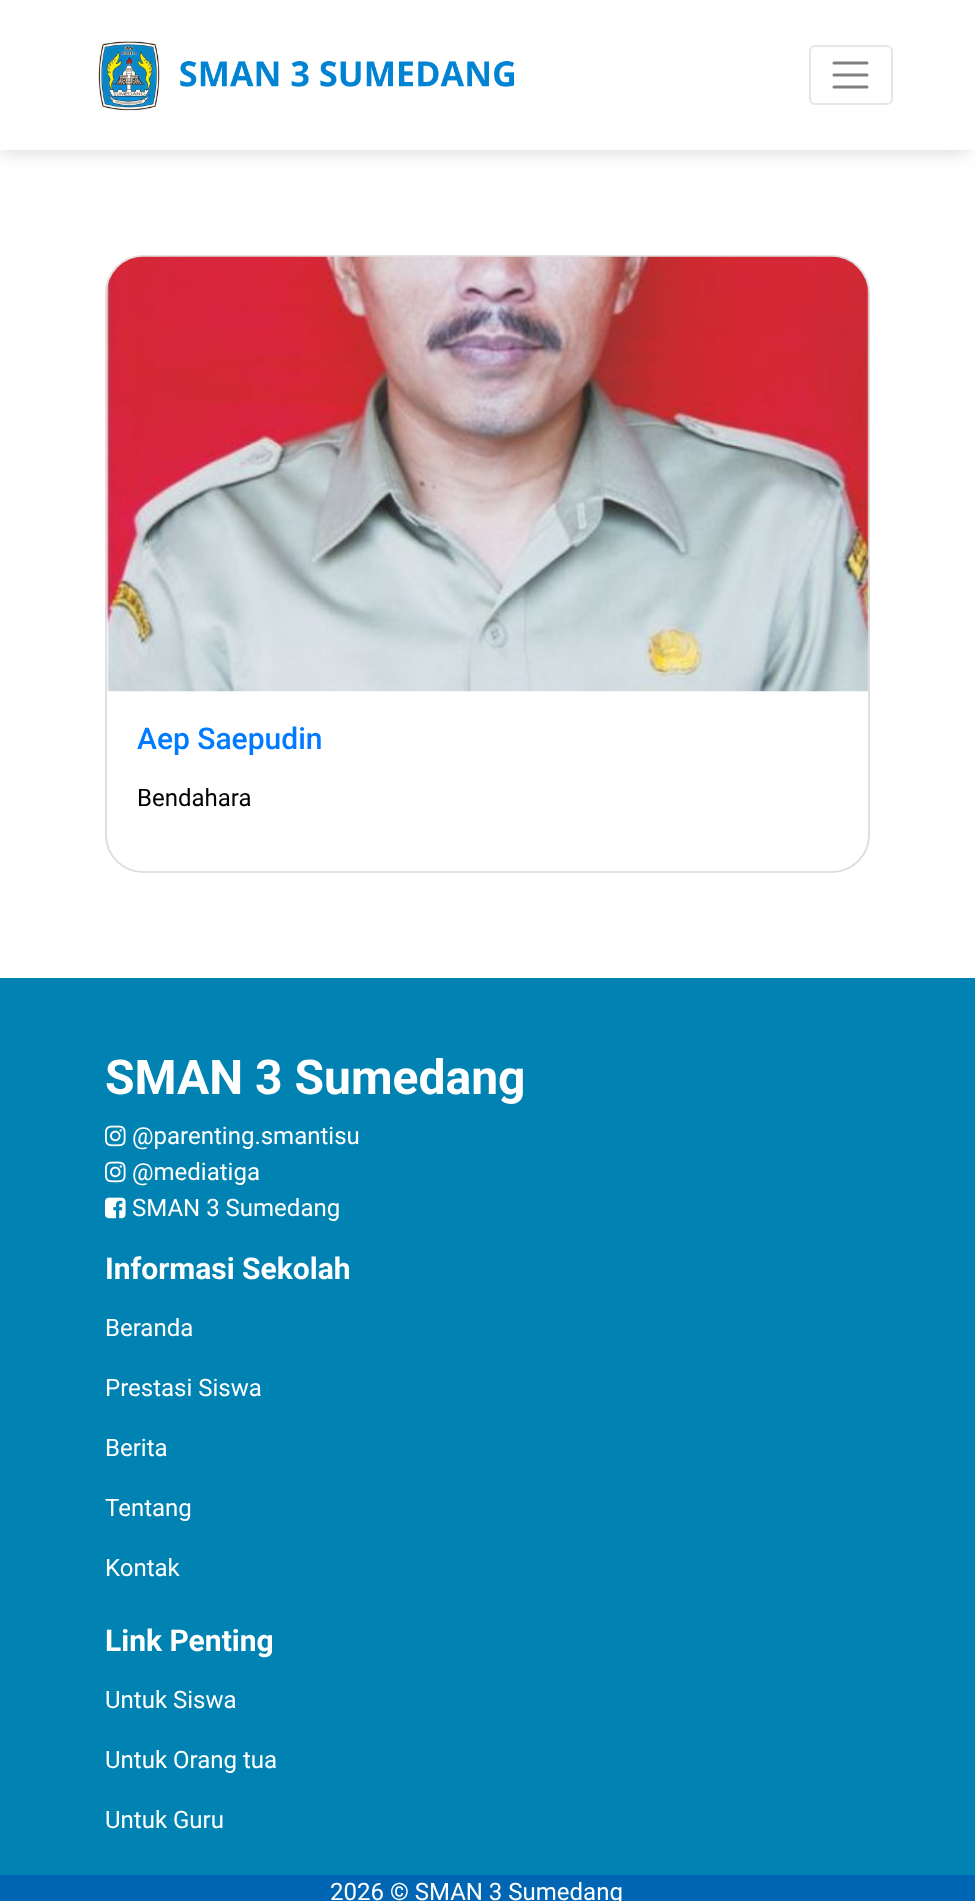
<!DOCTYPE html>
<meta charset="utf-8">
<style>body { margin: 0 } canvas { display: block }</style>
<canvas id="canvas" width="975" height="1901"></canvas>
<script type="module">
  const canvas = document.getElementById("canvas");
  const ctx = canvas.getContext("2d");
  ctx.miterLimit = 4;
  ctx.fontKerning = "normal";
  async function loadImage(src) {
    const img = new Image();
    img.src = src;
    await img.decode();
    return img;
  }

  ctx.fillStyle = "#ffffff";
  ctx.fillRect(0, 0, 975, 1901);
  ctx.save();
  ctx.beginPath();
  ctx.rect(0, 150, 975, 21);
  ctx.clip();
  ctx.fillStyle = "#d0d0d0";
  ctx.filter = "blur(10px)";
  ctx.beginPath();
  ctx.rect(2, 9, 966, 141);
  ctx.fill();
  ctx.filter = "none";
  ctx.restore();
  ctx.drawImage(await loadImage("img1.png"), 98, 41, 417, 70);
  ctx.beginPath();
  ctx.roundRect(810, 46, 82, 58, 5);
  ctx.strokeStyle = "#e6e6e6";
  ctx.lineWidth = 2;
  ctx.stroke();
  ctx.beginPath();
  ctx.moveTo(834, 63);
  ctx.lineTo(867, 63);
  ctx.moveTo(834, 75);
  ctx.lineTo(867, 75);
  ctx.moveTo(834, 87);
  ctx.lineTo(867, 87);
  ctx.strokeStyle = "#808080";
  ctx.lineWidth = 3;
  ctx.lineCap = "round";
  ctx.stroke();
  ctx.beginPath();
  ctx.roundRect(106, 256, 763, 616, 37);
  ctx.strokeStyle = "#dfdfdf";
  ctx.lineWidth = 2;
  ctx.stroke();
  ctx.drawImage(await loadImage("img2.png"), 106, 256, 763, 436);
  ctx.font = "500 30px Roboto";
  ctx.fillStyle = "#007bff";
  ctx.fillText("Aep Saepudin", 137, 749);
  ctx.font = "24px Roboto";
  ctx.fillStyle = "#000000";
  ctx.fillText("Bendahara", 137, 806);
  ctx.fillStyle = "#0083b3";
  ctx.fillRect(0, 978, 975, 897);
  ctx.font = "bold 48px Roboto";
  ctx.fillStyle = "#ffffff";
  ctx.fillText("SMAN 3 Sumedang", 105, 1094);
  ctx.drawImage(await loadImage("img3.png"), 105, 1125, 21, 22);
  ctx.font = "24px Roboto";
  ctx.fillText("@parenting.smantisu", 132, 1144);
  ctx.drawImage(await loadImage("img3.png"), 105, 1161, 21, 22);
  ctx.fillText("@mediatiga", 132, 1180);
  ctx.drawImage(await loadImage("img4.png"), 105, 1197, 21, 22);
  ctx.fillText("SMAN 3 Sumedang", 132, 1216);
  ctx.font = "bold 30px Roboto";
  ctx.fillText("Informasi Sekolah", 105, 1279);
  ctx.font = "24px Roboto";
  ctx.fillText("Beranda", 105, 1336);
  ctx.fillText("Prestasi Siswa", 105, 1396);
  ctx.fillText("Berita", 105, 1456);
  ctx.fillText("Tentang", 105, 1516);
  ctx.fillText("Kontak", 105, 1576);
  ctx.font = "bold 30px Roboto";
  ctx.fillText("Link Penting", 105, 1651);
  ctx.font = "24px Roboto";
  ctx.fillText("Untuk Siswa", 105, 1708);
  ctx.fillText("Untuk Orang tua", 105, 1768);
  ctx.fillText("Untuk Guru", 105, 1828);
  ctx.fillStyle = "#0065b3";
  ctx.fillRect(0, 1875, 975, 26);
  ctx.fillStyle = "#ffffff";
  ctx.fillText("2026 © SMAN 3 Sumedang", 330, 1900);
</script>
